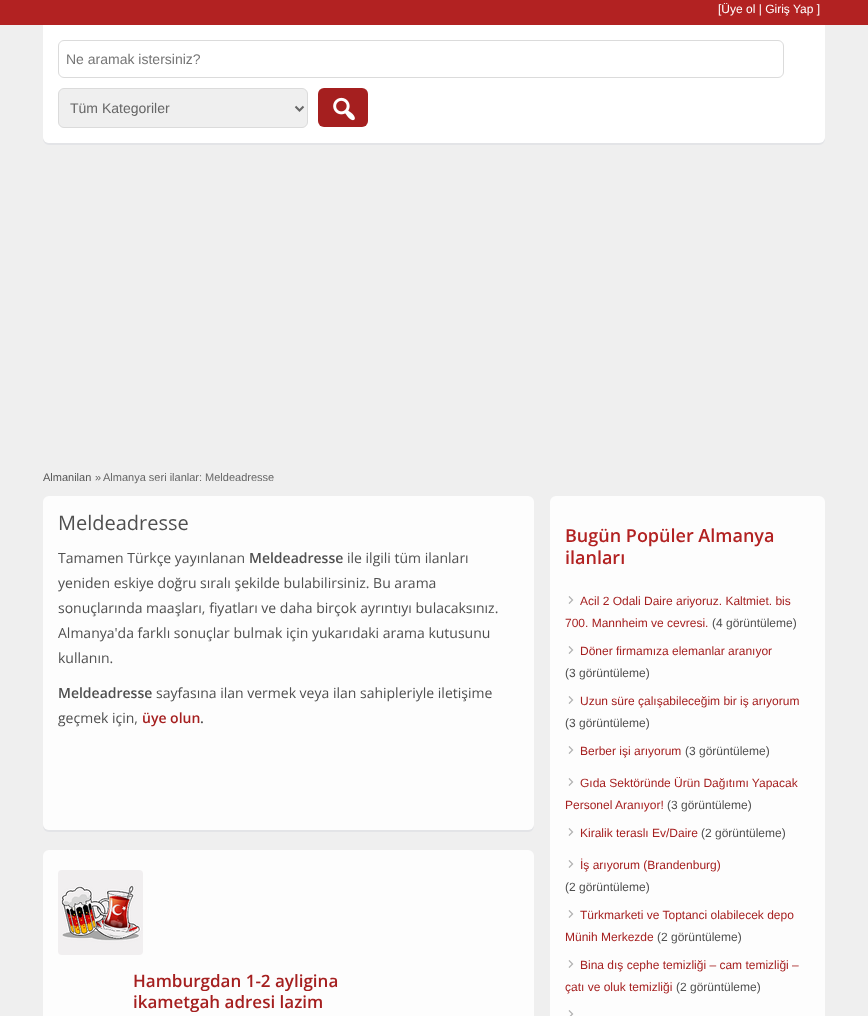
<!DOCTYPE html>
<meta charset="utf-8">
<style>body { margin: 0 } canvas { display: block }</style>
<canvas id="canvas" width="868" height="1016"></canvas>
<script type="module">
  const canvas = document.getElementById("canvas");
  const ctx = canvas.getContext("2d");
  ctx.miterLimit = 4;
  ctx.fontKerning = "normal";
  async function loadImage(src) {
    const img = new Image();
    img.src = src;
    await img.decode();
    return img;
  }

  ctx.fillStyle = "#efefef";
  ctx.fillRect(0, 0, 868, 1016);
  ctx.fillStyle = "#b22222";
  ctx.fillRect(0, 0, 868, 25);
  ctx.font = "12px Liberation Sans";
  ctx.fillStyle = "#ffffff";
  ctx.fillText("[Üye ol | Giriş Yap ]", 718, 13);
  ctx.fillStyle = "#e3e4e7";
  ctx.beginPath();
  ctx.moveTo(43, 137);
  ctx.lineTo(43, 139);
  ctx.bezierCurveTo(43, 142, 46, 145, 49, 145);
  ctx.lineTo(819, 145);
  ctx.bezierCurveTo(822, 145, 825, 142, 825, 139);
  ctx.lineTo(825, 137);
  ctx.bezierCurveTo(825, 140, 822, 143, 819, 143);
  ctx.lineTo(49, 143);
  ctx.bezierCurveTo(46, 143, 43, 140, 43, 137);
  ctx.closePath();
  ctx.fill();
  ctx.fillStyle = "#ffffff";
  ctx.beginPath();
  ctx.roundRect(43, 25, 782, 118, [0, 0, 6, 6]);
  ctx.fill();
  ctx.beginPath();
  ctx.roundRect(58.5, 40.5, 725, 37, 5.5);
  ctx.strokeStyle = "#dbdbdb";
  ctx.stroke();
  ctx.font = "14px Liberation Sans";
  ctx.fillStyle = "#757575";
  ctx.fillText("Ne aramak istersiniz?", 66, 64);
  ctx.fillStyle = "#efefef";
  ctx.beginPath();
  ctx.roundRect(58.5, 88.5, 249, 39, 5.5);
  ctx.fill();
  ctx.stroke();
  ctx.beginPath();
  ctx.moveTo(295.5, 106.5);
  ctx.lineTo(299.5, 110.5);
  ctx.lineTo(303.5, 106.5);
  ctx.strokeStyle = "#666666";
  ctx.lineWidth = 2;
  ctx.stroke();
  ctx.fillStyle = "#666666";
  ctx.fillText("Tüm Kategoriler", 70, 113);
  ctx.fillStyle = "#a51f1f";
  ctx.beginPath();
  ctx.roundRect(318, 88, 50, 39, 6);
  ctx.fill();
  ctx.drawImage(await loadImage("img1.png"), 333, 97, 22, 24);
  ctx.font = "11px Liberation Sans";
  ctx.fillStyle = "#555555";
  ctx.fillText("Almanilan", 43, 481);
  ctx.fillStyle = "#666666";
  ctx.fillText("»", 95, 481);
  ctx.fillText("Almanya seri ilanlar: Meldeadresse", 103, 481);
  ctx.fillStyle = "#e3e4e7";
  ctx.beginPath();
  ctx.moveTo(43, 824);
  ctx.bezierCurveTo(43, 828, 44, 832, 49, 832);
  ctx.lineTo(528, 832);
  ctx.bezierCurveTo(533, 832, 534, 828, 534, 824);
  ctx.bezierCurveTo(534, 827, 531, 830, 528, 830);
  ctx.lineTo(49, 830);
  ctx.bezierCurveTo(46, 830, 43, 827, 43, 824);
  ctx.closePath();
  ctx.fill();
  ctx.fillStyle = "#fdfdfd";
  ctx.beginPath();
  ctx.roundRect(43, 496, 491, 334, 6);
  ctx.fill();
  ctx.font = "20px Open Sans";
  ctx.fillStyle = "#4f4f4f";
  ctx.fillText("Meldeadresse", 58, 530);
  ctx.font = "14px Open Sans";
  ctx.fillText("Tamamen Türkçe yayınlanan", 58, 563);
  ctx.font = "600 14px Open Sans";
  ctx.fillText("Meldeadresse", 249, 563);
  ctx.font = "14px Open Sans";
  ctx.fillText("ile ilgili tüm ilanları", 347, 563);
  ctx.fillText("yeniden eskiye doğru sıralı şekilde bulabilirsiniz. Bu arama", 58, 588);
  ctx.fillText("sonuçlarında maaşları, fiyatları ve daha birçok ayrıntıyı bulacaksınız.", 58, 613);
  ctx.fillText("Almanya'da farklı sonuçlar bulmak için yukarıdaki arama kutusunu", 58, 638);
  ctx.fillText("kullanın.", 58, 663);
  ctx.font = "600 14px Open Sans";
  ctx.fillText("Meldeadresse", 58, 698);
  ctx.font = "14px Open Sans";
  ctx.fillText("sayfasına ilan vermek veya ilan sahipleriyle iletişime", 156, 698);
  ctx.fillText("geçmek için,", 58, 723);
  ctx.font = "600 14px Open Sans";
  ctx.fillStyle = "#a51f1f";
  ctx.fillText("üye olun", 142, 723);
  ctx.fillStyle = "#4f4f4f";
  ctx.fillText(".", 200, 723);
  ctx.fillStyle = "#fdfdfd";
  ctx.beginPath();
  ctx.roundRect(43, 850, 491, 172, 6);
  ctx.fill();
  ctx.drawImage(await loadImage("img2.png"), 58, 870, 85, 85);
  ctx.font = "600 17px Open Sans";
  ctx.fillStyle = "#a51f1f";
  ctx.fillText("Hamburgdan 1-2 ayligina", 133, 987);
  ctx.fillText("ikametgah adresi lazim", 133, 1008);
  ctx.fillStyle = "#fdfdfd";
  ctx.beginPath();
  ctx.roundRect(550, 496, 275, 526, 6);
  ctx.fill();
  ctx.font = "600 18px Open Sans";
  ctx.fillStyle = "#b22222";
  ctx.fillText("Bugün Popüler Almanya", 565, 542);
  ctx.fillText("ilanları", 565, 564);
  ctx.drawImage(await loadImage("img3.png"), 568, 596, 6, 8);
  ctx.font = "12px Liberation Sans";
  ctx.fillStyle = "#a51f1f";
  ctx.fillText("Acil 2 Odali Daire ariyoruz. Kaltmiet. bis", 580, 605);
  ctx.fillText("700. Mannheim ve cevresi.", 565, 627);
  ctx.fillStyle = "#4f4f4f";
  ctx.fillText("(4 görüntüleme)", 712, 627);
  ctx.drawImage(await loadImage("img3.png"), 568, 646, 6, 8);
  ctx.fillStyle = "#a51f1f";
  ctx.fillText("Döner firmamıza elemanlar aranıyor", 580, 655);
  ctx.fillStyle = "#4f4f4f";
  ctx.fillText("(3 görüntüleme)", 565, 677);
  ctx.drawImage(await loadImage("img3.png"), 568, 696, 6, 8);
  ctx.fillStyle = "#a51f1f";
  ctx.fillText("Uzun süre çalışabileceğim bir iş arıyorum", 580, 705);
  ctx.fillStyle = "#4f4f4f";
  ctx.fillText("(3 görüntüleme)", 565, 727);
  ctx.drawImage(await loadImage("img3.png"), 568, 746, 6, 8);
  ctx.fillStyle = "#a51f1f";
  ctx.fillText("Berber işi arıyorum", 580, 755);
  ctx.fillStyle = "#4f4f4f";
  ctx.fillText("(3 görüntüleme)", 685, 755);
  ctx.drawImage(await loadImage("img3.png"), 568, 778, 6, 8);
  ctx.fillStyle = "#a51f1f";
  ctx.fillText("Gıda Sektöründe Ürün Dağıtımı Yapacak", 580, 787);
  ctx.fillText("Personel Aranıyor!", 565, 809);
  ctx.fillStyle = "#4f4f4f";
  ctx.fillText("(3 görüntüleme)", 667, 809);
  ctx.drawImage(await loadImage("img3.png"), 568, 828, 6, 8);
  ctx.fillStyle = "#a51f1f";
  ctx.fillText("Kiralik teraslı Ev/Daire", 580, 837);
  ctx.fillStyle = "#4f4f4f";
  ctx.fillText("(2 görüntüleme)", 701, 837);
  ctx.drawImage(await loadImage("img3.png"), 568, 860, 6, 8);
  ctx.fillStyle = "#a51f1f";
  ctx.fillText("İş arıyorum (Brandenburg)", 580, 869);
  ctx.fillStyle = "#4f4f4f";
  ctx.fillText("(2 görüntüleme)", 565, 891);
  ctx.drawImage(await loadImage("img3.png"), 568, 910, 6, 8);
  ctx.fillStyle = "#a51f1f";
  ctx.fillText("Türkmarketi ve Toptanci olabilecek depo", 580, 919);
  ctx.fillText("Münih Merkezde", 565, 941);
  ctx.fillStyle = "#4f4f4f";
  ctx.fillText("(2 görüntüleme)", 657, 941);
  ctx.drawImage(await loadImage("img3.png"), 568, 960, 6, 8);
  ctx.fillStyle = "#a51f1f";
  ctx.fillText("Bina dış cephe temizliği – cam temizliği –", 580, 969);
  ctx.fillText("çatı ve oluk temizliği", 565, 991);
  ctx.fillStyle = "#4f4f4f";
  ctx.fillText("(2 görüntüleme)", 676, 991);
  ctx.drawImage(await loadImage("img4.png"), 568, 1010, 6, 6);
</script>
